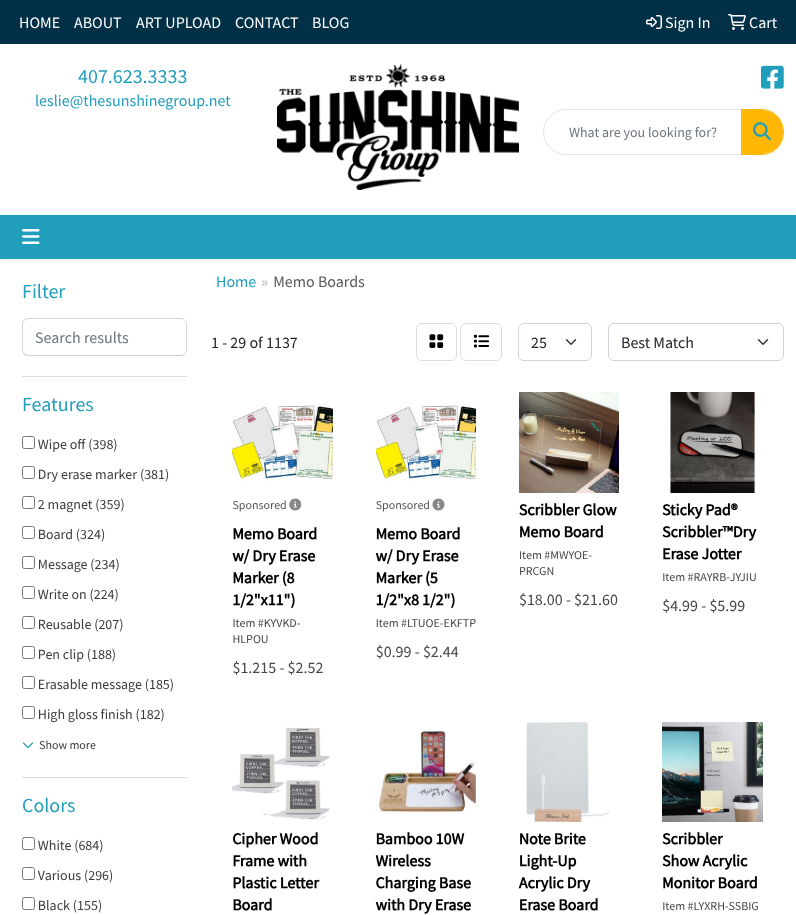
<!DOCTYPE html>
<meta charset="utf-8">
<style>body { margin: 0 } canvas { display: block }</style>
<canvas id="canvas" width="796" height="915"></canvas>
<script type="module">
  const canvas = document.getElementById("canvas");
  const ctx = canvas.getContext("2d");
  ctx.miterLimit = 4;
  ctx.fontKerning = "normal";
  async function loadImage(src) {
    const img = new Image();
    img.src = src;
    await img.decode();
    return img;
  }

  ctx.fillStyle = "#ffffff";
  ctx.fillRect(0, 0, 796, 915);
  ctx.fillStyle = "#023047";
  ctx.fillRect(0, 0, 796, 44);
  ctx.font = "16px Source Sans Pro";
  ctx.fillStyle = "#ffffff";
  ctx.fillText("HOME", 19, 28);
  ctx.fillText("ABOUT", 74, 28);
  ctx.fillText("ART UPLOAD", 136, 28);
  ctx.fillText("CONTACT", 235, 28);
  ctx.fillText("BLOG", 312, 28);
  ctx.drawImage(await loadImage("img1.png"), 646, 15, 16, 14);
  ctx.fillText("Sign In", 665, 28);
  ctx.drawImage(await loadImage("img2.png"), 728, 14, 18, 16);
  ctx.fillText("Cart", 749, 28);
  ctx.font = "20px Source Sans Pro";
  ctx.fillStyle = "#219ebc";
  ctx.fillText("407.623.3333", 78, 83);
  ctx.font = "16px Source Sans Pro";
  ctx.fillText("leslie@thesunshinegroup.net", 35, 106);
  ctx.drawImage(await loadImage("img3.png"), 277, 64, 242, 126);
  ctx.drawImage(await loadImage("img4.png"), 761, 65, 23, 24);
  ctx.beginPath();
  ctx.roundRect(543.5, 109.5, 198, 45, [22.5, 0, 0, 22.5]);
  ctx.strokeStyle = "#e4e4e4";
  ctx.stroke();
  ctx.font = "14px Source Sans Pro";
  ctx.fillStyle = "#6c757d";
  ctx.fillText("What are you looking for?", 569, 137);
  ctx.fillStyle = "#ffb703";
  ctx.beginPath();
  ctx.roundRect(741, 110, 42, 44, [0, 22, 22, 0]);
  ctx.fill();
  ctx.beginPath();
  ctx.moveTo(741, 109);
  ctx.lineTo(761, 109);
  ctx.bezierCurveTo(774, 109, 784, 119, 784, 132);
  ctx.bezierCurveTo(784, 145, 774, 155, 761, 155);
  ctx.lineTo(741, 155);
  ctx.closePath();
  ctx.moveTo(741, 110);
  ctx.lineTo(761, 110);
  ctx.bezierCurveTo(773, 110, 783, 120, 783, 132);
  ctx.bezierCurveTo(783, 144, 773, 154, 761, 154);
  ctx.lineTo(741, 154);
  ctx.closePath();
  ctx.fill("evenodd");
  ctx.drawImage(await loadImage("img5.png"), 753, 122, 18, 19);
  ctx.fillStyle = "rgba(0, 0, 0, 0.07)";
  ctx.filter = "blur(2px)";
  ctx.beginPath();
  ctx.rect(0, 217, 796, 44);
  ctx.fill();
  ctx.filter = "none";
  ctx.fillStyle = "#219ebc";
  ctx.fillRect(0, 215, 796, 44);
  ctx.drawImage(await loadImage("img6.png"), 22, 229, 18, 15);
  ctx.drawImage(await loadImage("img7.png"), 22, 275, 762, 639);
</script>
